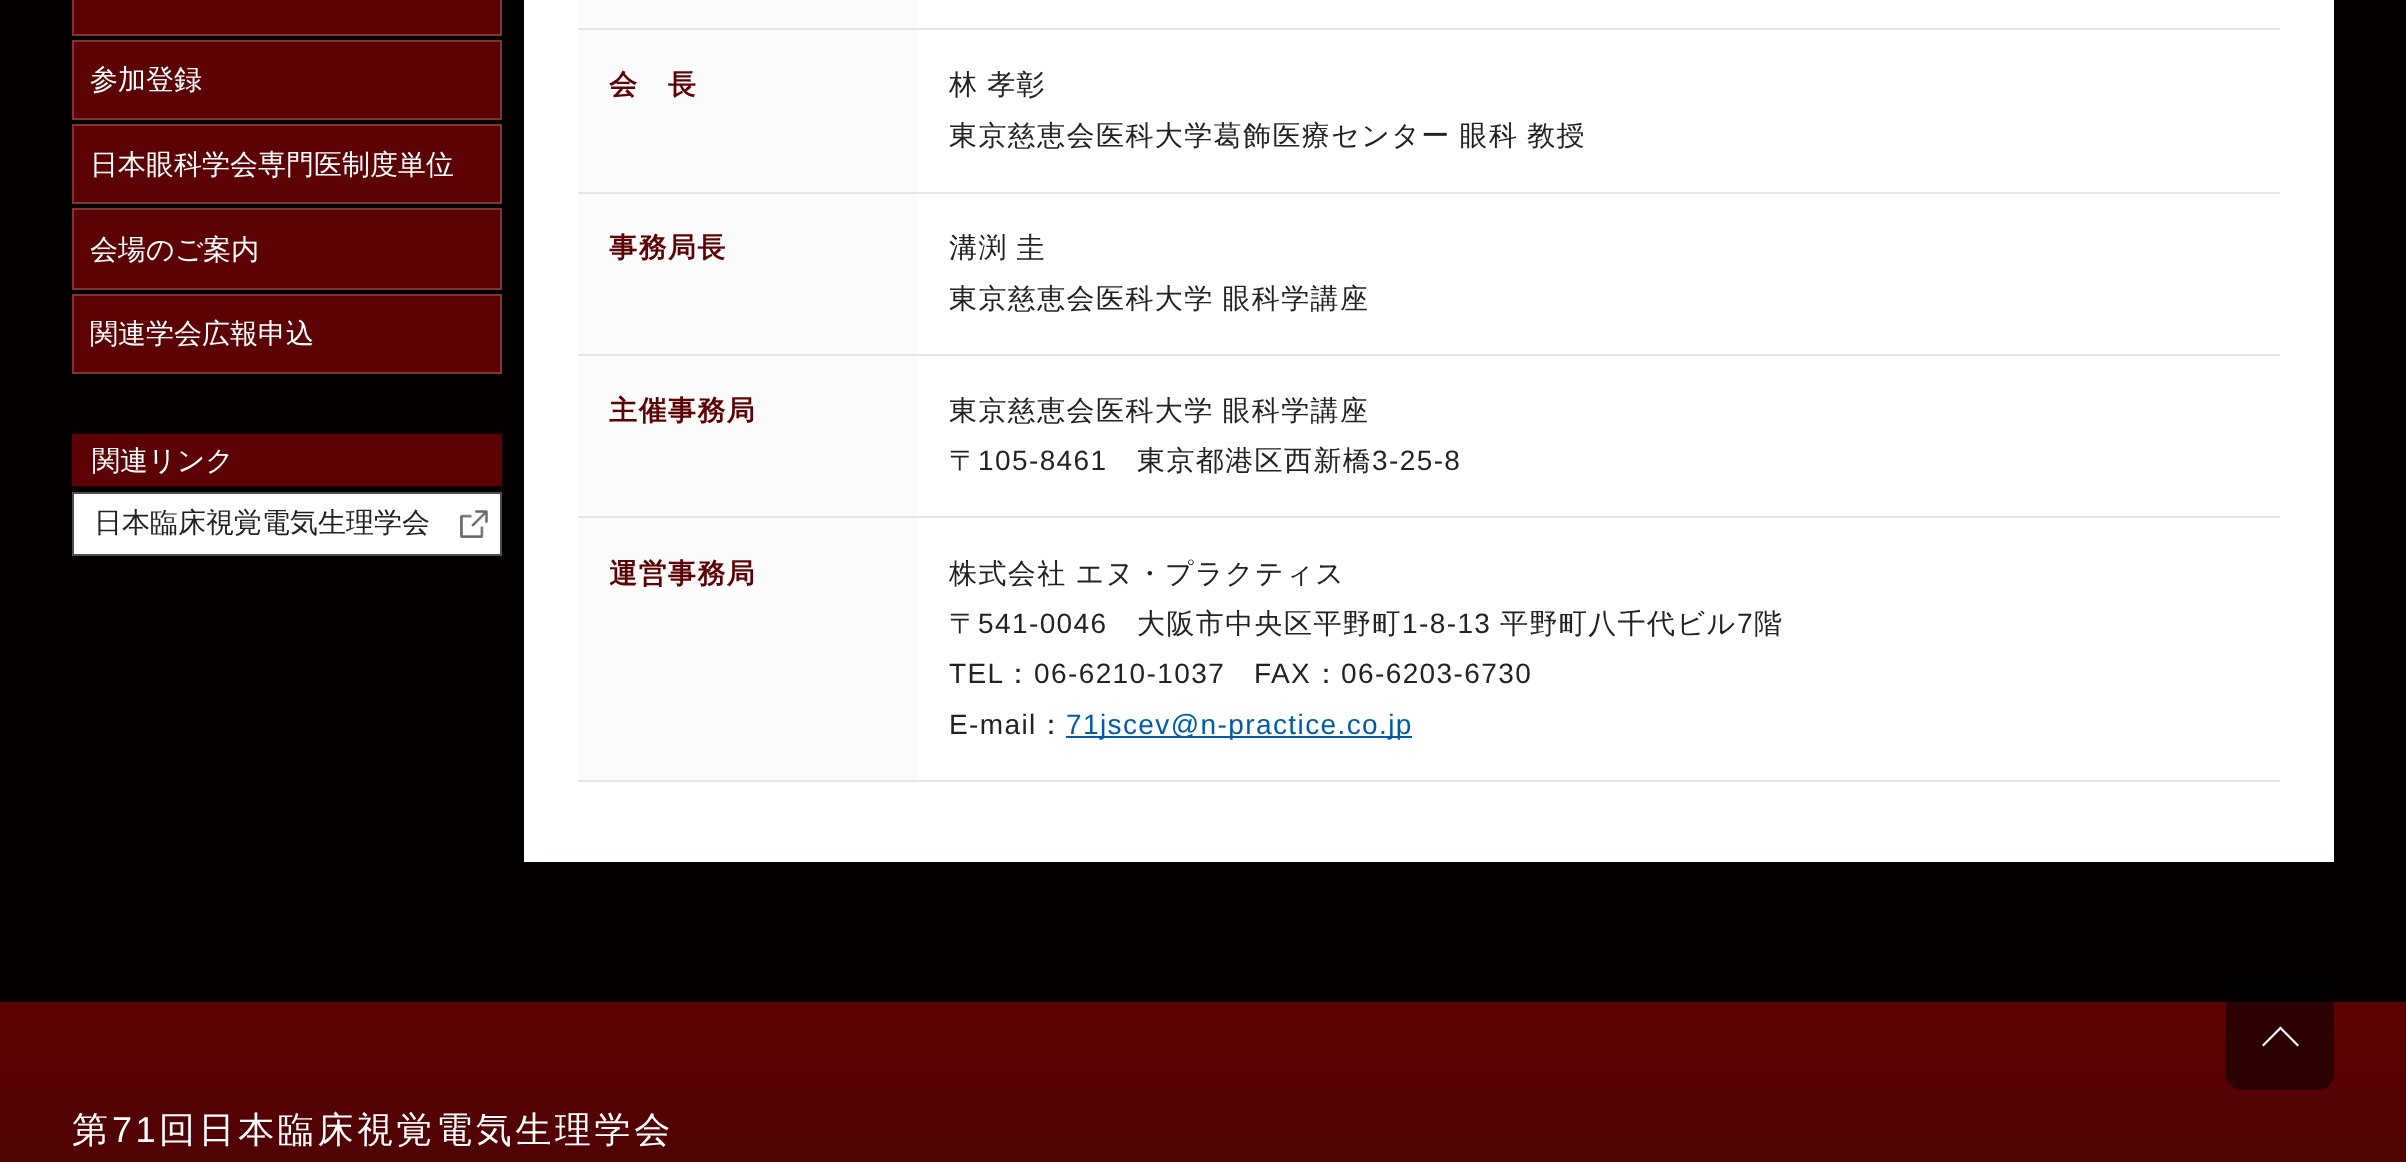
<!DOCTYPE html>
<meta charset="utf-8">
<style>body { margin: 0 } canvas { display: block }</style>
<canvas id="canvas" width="2406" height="1162"></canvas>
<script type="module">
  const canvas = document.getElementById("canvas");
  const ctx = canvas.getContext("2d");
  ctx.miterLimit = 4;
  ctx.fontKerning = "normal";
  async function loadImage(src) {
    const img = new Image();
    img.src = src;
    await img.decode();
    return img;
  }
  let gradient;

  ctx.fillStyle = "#040000";
  ctx.fillRect(0, 0, 2406, 1162);
  ctx.fillStyle = "#5c0204";
  ctx.beginPath();
  ctx.rect(73, -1, 428, 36);
  ctx.fill();
  ctx.strokeStyle = "#7d3536";
  ctx.lineWidth = 2;
  ctx.stroke();
  ctx.beginPath();
  ctx.rect(73, 41, 428, 78);
  ctx.fill();
  ctx.stroke();
  ctx.font = "500 28px WenQuanYi Zen Hei";
  ctx.fillStyle = "#ffffff";
  ctx.fillText("参加登録", 90, 89);
  ctx.fillStyle = "#5c0204";
  ctx.beginPath();
  ctx.rect(73, 125, 428, 78);
  ctx.fill();
  ctx.stroke();
  ctx.fillStyle = "#ffffff";
  ctx.fillText("日本眼科学会専門医制度単位", 90, 174);
  ctx.fillStyle = "#5c0204";
  ctx.beginPath();
  ctx.rect(73, 209, 428, 80);
  ctx.fill();
  ctx.stroke();
  ctx.fillStyle = "#ffffff";
  ctx.fillText("会場のご案内", 90, 259);
  ctx.fillStyle = "#5c0204";
  ctx.beginPath();
  ctx.rect(73, 295, 428, 78);
  ctx.fill();
  ctx.stroke();
  ctx.fillStyle = "#ffffff";
  ctx.fillText("関連学会広報申込", 90, 343);
  ctx.fillStyle = "#5c0204";
  ctx.fillRect(72, 434, 430, 52);
  ctx.fillStyle = "#ffffff";
  ctx.fillText("関連リンク", 92, 470);
  ctx.strokeStyle = "#4f4d4d";
  ctx.strokeRect(73, 493, 428, 62);
  ctx.fillRect(74, 494, 426, 60);
  ctx.drawImage(await loadImage("img1.png"), 460, 510, 28, 28);
  ctx.fillStyle = "#222222";
  ctx.fillText("日本臨床視覚電気生理学会", 94, 532);
  ctx.fillStyle = "#ffffff";
  ctx.fillRect(524, 0, 1810, 862);
  ctx.fillStyle = "#fbfbfb";
  ctx.fillRect(578, 0, 340, 28);
  ctx.fillStyle = "#e4e4e4";
  ctx.fillRect(578, 28, 1702, 2);
  ctx.fillStyle = "#fbfbfb";
  ctx.fillRect(578, 30, 340, 162);
  ctx.fillStyle = "#e4e4e4";
  ctx.fillRect(578, 192, 1702, 2);
  ctx.letterSpacing = "1.4px";
  ctx.font = "bold 28px WenQuanYi Zen Hei";
  ctx.fillStyle = "#5c0204";
  ctx.fillText("会　長", 609, 94);
  ctx.wordSpacing = "-1px";
  ctx.font = "500 28px WenQuanYi Zen Hei";
  ctx.fillStyle = "#222222";
  ctx.fillText("林 孝彰", 949, 94);
  ctx.fillText("東京慈恵会医科大学葛飾医療センター 眼科 教授", 949, 145);
  ctx.fillStyle = "#fbfbfb";
  ctx.fillRect(578, 194, 340, 160);
  ctx.fillStyle = "#e4e4e4";
  ctx.fillRect(578, 354, 1702, 2);
  ctx.wordSpacing = "0px";
  ctx.font = "bold 28px WenQuanYi Zen Hei";
  ctx.fillStyle = "#5c0204";
  ctx.fillText("事務局長", 609, 257);
  ctx.wordSpacing = "-1px";
  ctx.font = "500 28px WenQuanYi Zen Hei";
  ctx.fillStyle = "#222222";
  ctx.fillText("溝渕 圭", 949, 257);
  ctx.fillText("東京慈恵会医科大学 眼科学講座", 949, 308);
  ctx.fillStyle = "#fbfbfb";
  ctx.fillRect(578, 356, 340, 160);
  ctx.fillStyle = "#e4e4e4";
  ctx.fillRect(578, 516, 1702, 2);
  ctx.wordSpacing = "0px";
  ctx.font = "bold 28px WenQuanYi Zen Hei";
  ctx.fillStyle = "#5c0204";
  ctx.fillText("主催事務局", 609, 420);
  ctx.wordSpacing = "-1px";
  ctx.font = "500 28px WenQuanYi Zen Hei";
  ctx.fillStyle = "#222222";
  ctx.fillText("東京慈恵会医科大学 眼科学講座", 949, 420);
  ctx.wordSpacing = "0px";
  ctx.fillText("〒", 949, 470);
  ctx.font = "28px Liberation Sans";
  ctx.fillText("105-8461", 978, 470);
  ctx.font = "500 28px WenQuanYi Zen Hei";
  ctx.fillText("東京都港区西新橋", 1137, 470);
  ctx.font = "28px Liberation Sans";
  ctx.fillText("3-25-8", 1372, 470);
  ctx.fillStyle = "#fbfbfb";
  ctx.fillRect(578, 518, 340, 262);
  ctx.fillStyle = "#e4e4e4";
  ctx.fillRect(578, 780, 1702, 2);
  ctx.font = "bold 28px WenQuanYi Zen Hei";
  ctx.fillStyle = "#5c0204";
  ctx.fillText("運営事務局", 609, 583);
  ctx.wordSpacing = "-1px";
  ctx.font = "500 28px WenQuanYi Zen Hei";
  ctx.fillStyle = "#222222";
  ctx.fillText("株式会社 エヌ・プラクティス", 949, 583);
  ctx.wordSpacing = "0px";
  ctx.fillText("〒", 949, 633);
  ctx.font = "28px Liberation Sans";
  ctx.fillText("541-0046", 978, 633);
  ctx.font = "500 28px WenQuanYi Zen Hei";
  ctx.fillText("大阪市中央区平野町", 1137, 633);
  ctx.font = "28px Liberation Sans";
  ctx.fillText("1-8-13", 1402, 633);
  ctx.font = "500 28px WenQuanYi Zen Hei";
  ctx.fillText("平野町八千代ビル", 1500, 633);
  ctx.font = "28px Liberation Sans";
  ctx.fillText("7", 1737, 633);
  ctx.font = "500 28px WenQuanYi Zen Hei";
  ctx.fillText("階", 1754, 633);
  ctx.font = "28px Liberation Sans";
  ctx.fillText("TEL", 949, 683);
  ctx.font = "500 28px WenQuanYi Zen Hei";
  ctx.fillText("：", 1004, 683);
  ctx.font = "28px Liberation Sans";
  ctx.fillText("06-6210-1037", 1034, 683);
  ctx.fillText("FAX", 1254, 683);
  ctx.font = "500 28px WenQuanYi Zen Hei";
  ctx.fillText("：", 1312, 683);
  ctx.font = "28px Liberation Sans";
  ctx.fillText("06-6203-6730", 1341, 683);
  ctx.fillText("E-mail", 949, 734);
  ctx.font = "500 28px WenQuanYi Zen Hei";
  ctx.fillText("：", 1037, 734);
  ctx.fillStyle = "#005aab";
  ctx.fillRect(1066, 736, 346, 2);
  ctx.font = "28px Liberation Sans";
  ctx.fillText("71jscev@n-practice.co.jp", 1066, 734);
  gradient = ctx.createLinearGradient(1203, 1002, 1203, 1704);
  gradient.addColorStop(0, "#5c0204");
  gradient.addColorStop(1, "#250001");
  ctx.fillStyle = gradient;
  ctx.fillRect(0, 1002, 2406, 160);
  ctx.fillStyle = "rgba(0, 0, 0, 0.5)";
  ctx.beginPath();
  ctx.roundRect(2226, 982, 108, 108, 16);
  ctx.fill();
  ctx.fillStyle = "#ffffff";
  ctx.beginPath();
  ctx.moveTo(2262, 1045);
  ctx.lineTo(2280.5, 1026.5);
  ctx.lineTo(2282, 1028);
  ctx.lineTo(2263.5, 1046.5);
  ctx.closePath();
  ctx.fill();
  ctx.beginPath();
  ctx.moveTo(2279, 1028);
  ctx.lineTo(2280.5, 1026.5);
  ctx.lineTo(2299, 1045);
  ctx.lineTo(2297.5, 1046.5);
  ctx.closePath();
  ctx.fill();
  ctx.letterSpacing = "3.6px";
  ctx.font = "500 36px WenQuanYi Zen Hei";
  ctx.fillText("第", 72, 1142);
  ctx.font = "36px Liberation Sans";
  ctx.fillText("71", 112, 1142);
  ctx.font = "500 36px WenQuanYi Zen Hei";
  ctx.fillText("回日本臨床視覚電気生理学会", 159, 1142);
</script>
